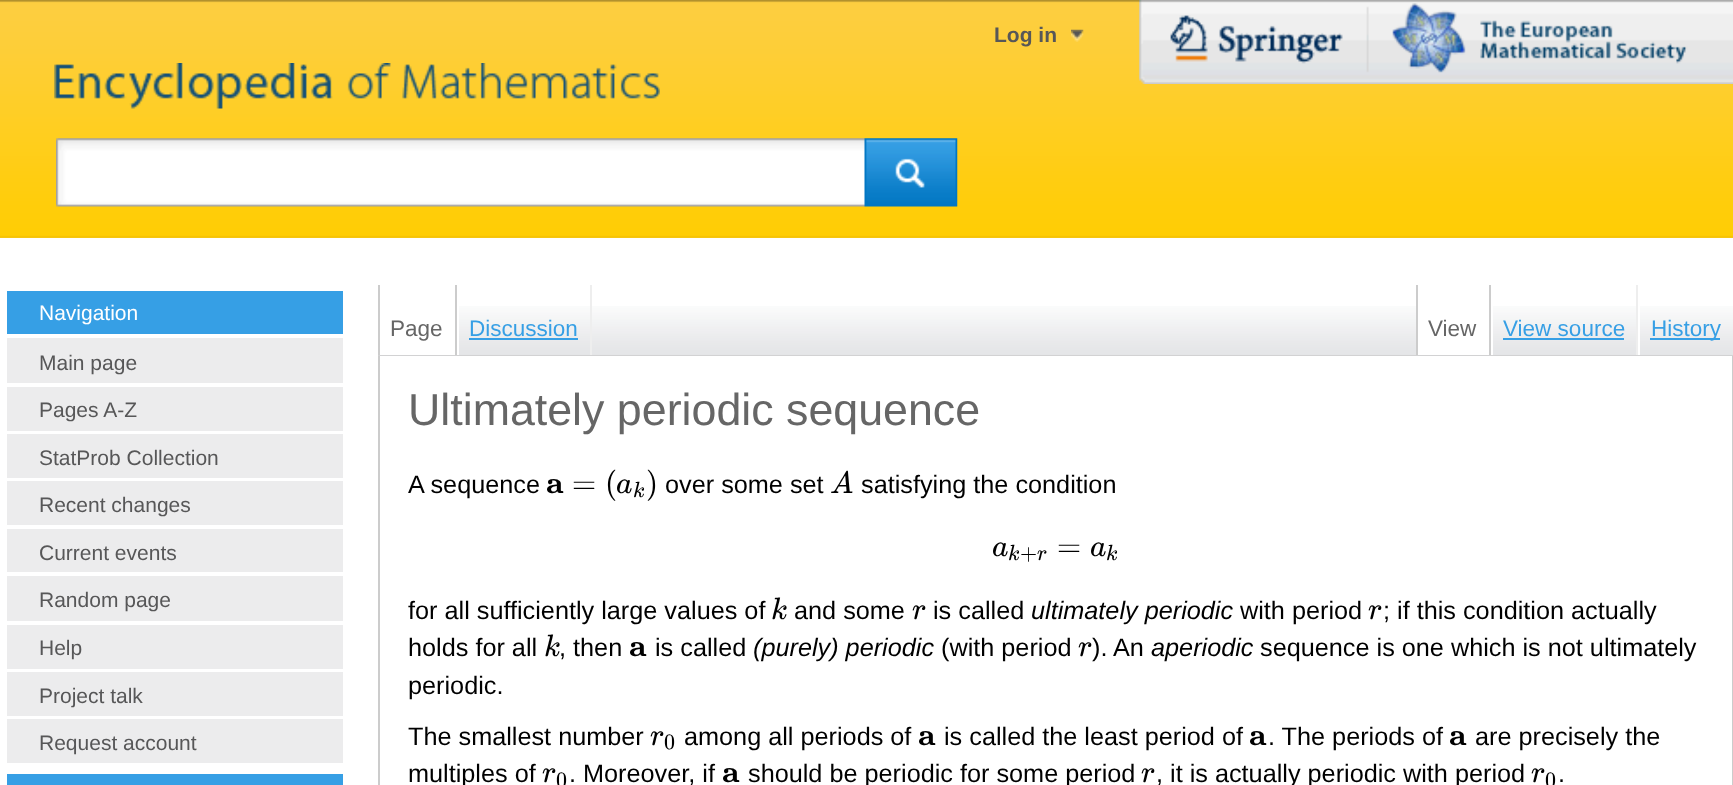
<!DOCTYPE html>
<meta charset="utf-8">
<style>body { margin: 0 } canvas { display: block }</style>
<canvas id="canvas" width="1733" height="785"></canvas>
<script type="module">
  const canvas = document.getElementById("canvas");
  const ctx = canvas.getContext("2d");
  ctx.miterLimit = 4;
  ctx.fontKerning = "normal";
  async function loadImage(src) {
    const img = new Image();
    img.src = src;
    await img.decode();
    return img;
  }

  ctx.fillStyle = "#ffffff";
  ctx.fillRect(0, 0, 1733, 785);
  ctx.drawImage(await loadImage("img1.png"), 0, 0, 1733, 238);
  ctx.drawImage(await loadImage("img2.png"), 1071, 29, 13, 13);
  ctx.font = "bold 21px Liberation Sans";
  ctx.fillStyle = "#575758";
  ctx.fillText("Log in", 994, 42);
  ctx.drawImage(await loadImage("img3.png"), 1139, 0, 594, 84);
  ctx.drawImage(await loadImage("img4.png"), 54, 63, 606, 46);
  ctx.drawImage(await loadImage("img5.png"), 56, 138, 902, 69);
  ctx.fillStyle = "#369fe5";
  ctx.fillRect(7, 291, 336, 43);
  ctx.font = "21px Liberation Sans";
  ctx.fillStyle = "#ffffff";
  ctx.fillText("Navigation", 39, 320);
  ctx.fillStyle = "#ececed";
  ctx.fillRect(7, 338, 336, 45);
  ctx.fillStyle = "#575758";
  ctx.fillText("Main page", 39, 370);
  ctx.fillStyle = "#ececed";
  ctx.fillRect(7, 387, 336, 44);
  ctx.fillStyle = "#575758";
  ctx.fillText("Pages A-Z", 39, 417);
  ctx.fillStyle = "#ececed";
  ctx.fillRect(7, 434, 336, 44);
  ctx.fillStyle = "#575758";
  ctx.fillText("StatProb Collection", 39, 465);
  ctx.fillStyle = "#ececed";
  ctx.fillRect(7, 481, 336, 44);
  ctx.fillStyle = "#575758";
  ctx.fillText("Recent changes", 39, 512);
  ctx.fillStyle = "#ececed";
  ctx.fillRect(7, 529, 336, 43);
  ctx.fillStyle = "#575758";
  ctx.fillText("Current events", 39, 560);
  ctx.fillStyle = "#ececed";
  ctx.fillRect(7, 576, 336, 45);
  ctx.fillStyle = "#575758";
  ctx.fillText("Random page", 39, 607);
  ctx.fillStyle = "#ececed";
  ctx.fillRect(7, 625, 336, 44);
  ctx.fillStyle = "#575758";
  ctx.fillText("Help", 39, 655);
  ctx.fillStyle = "#ececed";
  ctx.fillRect(7, 672, 336, 44);
  ctx.fillStyle = "#575758";
  ctx.fillText("Project talk", 39, 703);
  ctx.fillStyle = "#ececed";
  ctx.fillRect(7, 719, 336, 44);
  ctx.fillStyle = "#575758";
  ctx.fillText("Request account", 39, 750);
  ctx.fillStyle = "#369fe5";
  ctx.fillRect(7, 774, 336, 11);
  ctx.strokeStyle = "#cccccc";
  ctx.lineWidth = 2;
  ctx.strokeRect(379, 355, 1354, 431);
  ctx.drawImage(await loadImage("img6.png"), 378, 306, 1355, 50);
  ctx.fillStyle = "#ffffff";
  ctx.fillRect(380, 306, 75, 49);
  ctx.fillStyle = "#cccccc";
  ctx.fillRect(455, 285, 2, 70);
  ctx.fillRect(378, 285, 2, 70);
  ctx.font = "22.5px Liberation Sans";
  ctx.fillStyle = "#666666";
  ctx.fillText("Page", 390, 336);
  ctx.fillStyle = "#eeeeee";
  ctx.fillRect(590, 285, 2, 70);
  ctx.fillStyle = "#ffffff";
  ctx.fillRect(457, 306, 2, 49);
  ctx.fillStyle = "#369fe5";
  ctx.fillText("Discussion", 469, 336);
  ctx.fillRect(469, 338, 109, 2);
  ctx.fillStyle = "#ffffff";
  ctx.fillRect(1418, 306, 71, 49);
  ctx.fillStyle = "#cccccc";
  ctx.fillRect(1489, 285, 2, 70);
  ctx.fillRect(1416, 285, 2, 70);
  ctx.fillStyle = "#666666";
  ctx.fillText("View", 1428, 336);
  ctx.fillStyle = "#eeeeee";
  ctx.fillRect(1636, 285, 2, 70);
  ctx.fillStyle = "#ffffff";
  ctx.fillRect(1491, 306, 2, 49);
  ctx.fillStyle = "#369fe5";
  ctx.fillText("View source", 1503, 336);
  ctx.fillRect(1503, 338, 121, 2);
  ctx.fillStyle = "#ffffff";
  ctx.fillRect(1638, 306, 2, 49);
  ctx.fillStyle = "#369fe5";
  ctx.fillRect(1650, 338, 70, 2);
  ctx.fillText("History", 1651, 336);
  ctx.font = "44.75px Liberation Sans";
  ctx.fillStyle = "#666666";
  ctx.fillText("Ultimately periodic sequence", 408, 425);
  ctx.font = "25.25px Liberation Sans";
  ctx.fillStyle = "#000000";
  ctx.fillText("A sequence", 408, 493);
  ctx.font = "bold 31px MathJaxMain";
  ctx.fillText("a", 546, 493);
  ctx.font = "31px MathJaxMain";
  ctx.fillText("=", 572, 493);
  ctx.fillText("(", 605, 493);
  ctx.font = "italic 31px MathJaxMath";
  ctx.fillText("a", 616, 493);
  ctx.font = "italic 22px MathJaxMath";
  ctx.fillText("k", 633, 497);
  ctx.font = "31px MathJaxMain";
  ctx.fillText(")", 646, 493);
  ctx.font = "25.25px Liberation Sans";
  ctx.fillText("over some set", 665, 493);
  ctx.font = "italic 31px MathJaxMath";
  ctx.fillText("A", 830, 493);
  ctx.font = "25.25px Liberation Sans";
  ctx.fillText("satisfying the condition", 861, 493);
  ctx.font = "italic 31px MathJaxMath";
  ctx.fillText("a", 992, 556);
  ctx.font = "italic 22px MathJaxMath";
  ctx.fillText("k", 1008, 560);
  ctx.font = "22px MathJaxMain";
  ctx.fillText("+", 1020, 560);
  ctx.font = "italic 22px MathJaxMath";
  ctx.fillText("r", 1037, 560);
  ctx.font = "31px MathJaxMain";
  ctx.fillText("=", 1057, 556);
  ctx.font = "italic 31px MathJaxMath";
  ctx.fillText("a", 1090, 556);
  ctx.font = "italic 22px MathJaxMath";
  ctx.fillText("k", 1106, 560);
  ctx.font = "25.25px Liberation Sans";
  ctx.fillText("for all sufficiently large values of", 408, 619);
  ctx.font = "italic 31px MathJaxMath";
  ctx.fillText("k", 771, 619);
  ctx.font = "25.25px Liberation Sans";
  ctx.fillText("and some", 794, 619);
  ctx.font = "italic 31px MathJaxMath";
  ctx.fillText("r", 912, 619);
  ctx.font = "25.25px Liberation Sans";
  ctx.fillText("is called", 933, 619);
  ctx.font = "italic 25.25px Liberation Sans";
  ctx.fillText("ultimately periodic", 1031, 619);
  ctx.font = "25.25px Liberation Sans";
  ctx.fillText("with period", 1240, 619);
  ctx.font = "italic 31px MathJaxMath";
  ctx.fillText("r", 1368, 619);
  ctx.font = "25.25px Liberation Sans";
  ctx.fillText("; if this condition actually", 1383, 619);
  ctx.fillText("holds for all", 408, 656);
  ctx.font = "italic 31px MathJaxMath";
  ctx.fillText("k", 544, 656);
  ctx.font = "25.25px Liberation Sans";
  ctx.fillText(", then", 559, 656);
  ctx.font = "bold 31px MathJaxMain";
  ctx.fillText("a", 629, 656);
  ctx.font = "25.25px Liberation Sans";
  ctx.fillText("is called", 655, 656);
  ctx.font = "italic 25.25px Liberation Sans";
  ctx.fillText("(purely) periodic", 753, 656);
  ctx.font = "25.25px Liberation Sans";
  ctx.fillText("(with period", 941, 656);
  ctx.font = "italic 31px MathJaxMath";
  ctx.fillText("r", 1078, 656);
  ctx.font = "25.25px Liberation Sans";
  ctx.fillText(").", 1092, 656);
  ctx.fillText("An", 1113, 656);
  ctx.font = "italic 25.25px Liberation Sans";
  ctx.fillText("aperiodic", 1151, 656);
  ctx.font = "25.25px Liberation Sans";
  ctx.fillText("sequence is one which is not ultimately", 1260, 656);
  ctx.fillText("periodic.", 408, 694);
  ctx.fillText("The smallest number", 408, 745);
  ctx.font = "italic 31px MathJaxMath";
  ctx.fillText("r", 650, 745);
  ctx.font = "22px MathJaxMain";
  ctx.fillText("0", 664, 749);
  ctx.font = "25.25px Liberation Sans";
  ctx.fillText("among all periods of", 684, 745);
  ctx.font = "bold 31px MathJaxMain";
  ctx.fillText("a", 918, 745);
  ctx.font = "25.25px Liberation Sans";
  ctx.fillText("is called the least period of", 944, 745);
  ctx.font = "bold 31px MathJaxMain";
  ctx.fillText("a", 1249, 745);
  ctx.font = "25.25px Liberation Sans";
  ctx.fillText(". The periods of", 1268, 745);
  ctx.font = "bold 31px MathJaxMain";
  ctx.fillText("a", 1449, 745);
  ctx.font = "25.25px Liberation Sans";
  ctx.fillText("are precisely the", 1475, 745);
  ctx.fillText("multiples of", 408, 782);
  ctx.font = "italic 31px MathJaxMath";
  ctx.fillText("r", 542, 782);
  ctx.font = "22px MathJaxMain";
  ctx.fillText("0", 556, 787);
  ctx.font = "25.25px Liberation Sans";
  ctx.fillText(". Moreover, if", 569, 782);
  ctx.font = "bold 31px MathJaxMain";
  ctx.fillText("a", 722, 782);
  ctx.font = "25.25px Liberation Sans";
  ctx.fillText("should be periodic for some period", 748, 782);
  ctx.font = "italic 31px MathJaxMath";
  ctx.fillText("r", 1141, 782);
  ctx.font = "25.25px Liberation Sans";
  ctx.fillText(", it is actually periodic with period", 1156, 782);
  ctx.font = "italic 31px MathJaxMath";
  ctx.fillText("r", 1531, 782);
  ctx.font = "22px MathJaxMain";
  ctx.fillText("0", 1545, 787);
  ctx.font = "25.25px Liberation Sans";
  ctx.fillText(".", 1558, 782);
</script>
